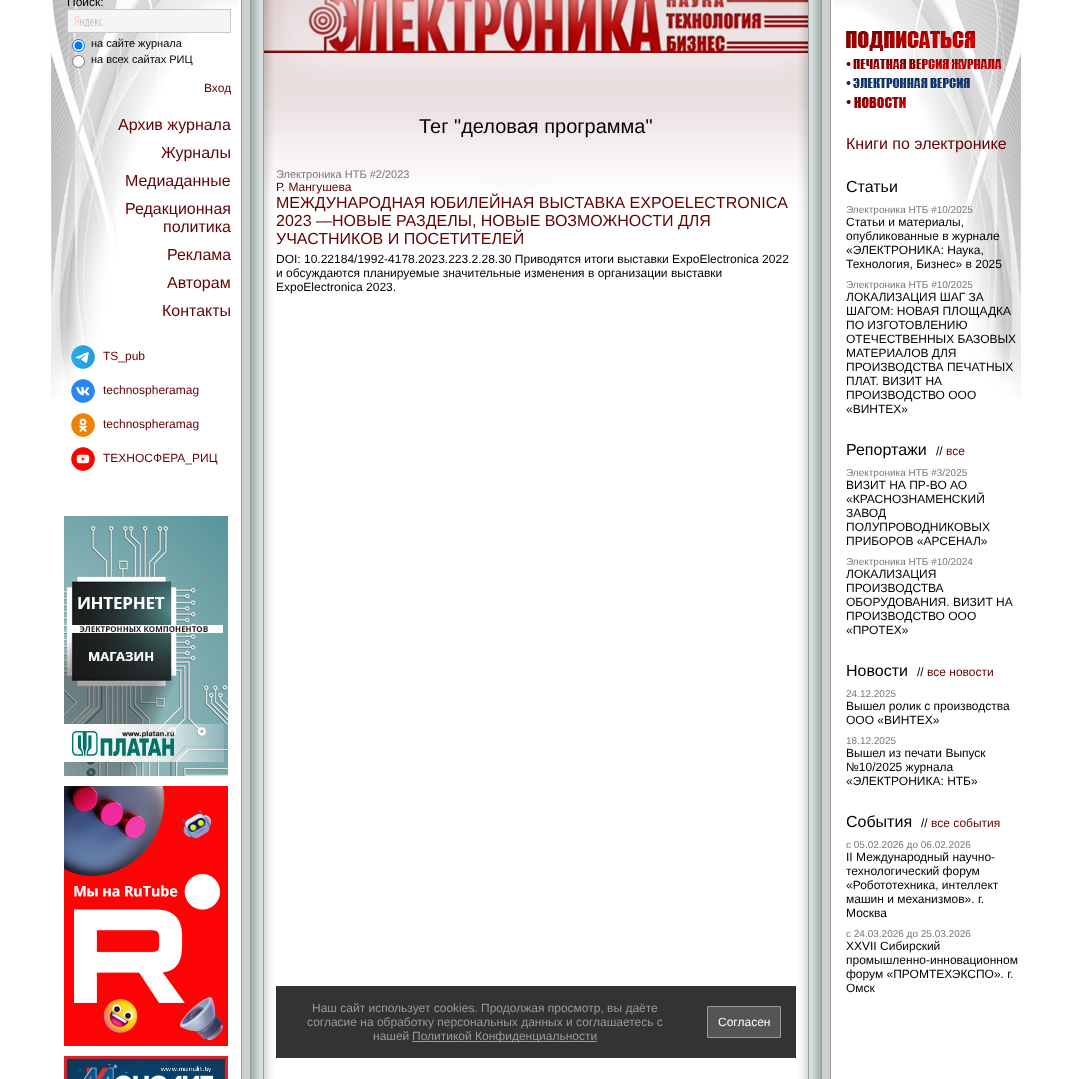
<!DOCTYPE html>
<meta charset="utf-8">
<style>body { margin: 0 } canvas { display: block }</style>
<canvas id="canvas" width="1072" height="1079"></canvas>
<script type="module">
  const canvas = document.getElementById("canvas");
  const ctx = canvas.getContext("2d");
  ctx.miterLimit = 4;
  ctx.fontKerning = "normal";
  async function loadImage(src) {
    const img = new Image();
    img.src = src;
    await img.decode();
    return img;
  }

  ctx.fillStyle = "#ffffff";
  ctx.fillRect(0, 0, 1072, 1079);
  ctx.drawImage(await loadImage("img1.png"), 51, 0, 187, 399);
  ctx.fillStyle = "#969c9d";
  ctx.fillRect(241, 0, 1, 1079);
  ctx.font = "12px Liberation Sans";
  ctx.fillStyle = "#000000";
  ctx.fillText("Поиск:", 67, 6);
  ctx.fillStyle = "#f5f5f5";
  ctx.fillRect(68, 10, 162, 22);
  ctx.drawImage(await loadImage("img2.png"), 74, 16, 29, 11);
  ctx.strokeStyle = "#c8c8c8";
  ctx.strokeRect(67.5, 9.5, 163, 23);
  ctx.fillStyle = "#ffffff";
  ctx.beginPath();
  ctx.arc(78.5, 45.5, 6, 0, Math.PI * 2);
  ctx.fill();
  ctx.strokeStyle = "#0075ff";
  ctx.stroke();
  ctx.fillStyle = "#0075ff";
  ctx.beginPath();
  ctx.arc(78.5, 45.5, 4, 0, Math.PI * 2);
  ctx.fill();
  ctx.font = "11px Liberation Sans";
  ctx.fillStyle = "#000000";
  ctx.fillText("на сайте журнала", 91, 47);
  ctx.fillStyle = "#ffffff";
  ctx.beginPath();
  ctx.arc(78.5, 61.5, 6, 0, Math.PI * 2);
  ctx.fill();
  ctx.strokeStyle = "#767676";
  ctx.stroke();
  ctx.fillStyle = "#000000";
  ctx.fillText("на всех сайтах РИЦ", 91, 63);
  ctx.font = "12px Liberation Sans";
  ctx.fillStyle = "#640000";
  ctx.fillText("Вход", 204, 92);
  ctx.font = "16px Liberation Sans";
  ctx.fillText("Архив журнала", 118, 130);
  ctx.fillText("Журналы", 161, 158);
  ctx.fillText("Медиаданные", 125, 186);
  ctx.fillText("Редакционная", 125, 214);
  ctx.fillText("политика", 163, 232);
  ctx.fillText("Реклама", 167, 260);
  ctx.fillText("Авторам", 167, 288);
  ctx.fillText("Контакты", 162, 316);
  ctx.drawImage(await loadImage("img3.png"), 71, 345, 24, 24);
  ctx.font = "12px Liberation Sans";
  ctx.fillText("TS_pub", 103, 360);
  ctx.drawImage(await loadImage("img4.png"), 71, 379, 24, 24);
  ctx.fillText("technospheramag", 103, 394);
  ctx.drawImage(await loadImage("img5.png"), 71, 413, 24, 24);
  ctx.fillText("technospheramag", 103, 428);
  ctx.drawImage(await loadImage("img6.png"), 71, 447, 24, 24);
  ctx.fillText("ТЕХНОСФЕРА_РИЦ", 103, 462);
  ctx.drawImage(await loadImage("img7.png"), 64, 516, 164, 260);
  ctx.drawImage(await loadImage("img8.png"), 64, 786, 164, 260);
  ctx.drawImage(await loadImage("img9.png"), 64, 1056, 164, 23);
  ctx.fillStyle = "#d0cecf";
  ctx.fillRect(242, 0, 8, 1079);
  ctx.drawImage(await loadImage("img10.png"), 250, 0, 14, 1079);
  ctx.drawImage(await loadImage("img12.png"), 264, 0, 544, 207);
  ctx.drawImage(await loadImage("img11.png"), 264, 0, 9, 1079);
  ctx.font = "20px Liberation Sans";
  ctx.fillStyle = "#000000";
  ctx.fillText("Тег \"деловая программа\"", 419, 133);
  ctx.font = "11px Liberation Sans";
  ctx.fillStyle = "#787878";
  ctx.fillText("Электроника НТБ #2/2023", 276, 178);
  ctx.font = "12px Liberation Sans";
  ctx.fillStyle = "#640000";
  ctx.fillText("Р. Мангушева", 276, 191);
  ctx.font = "16px Liberation Sans";
  ctx.fillText("МЕЖДУНАРОДНАЯ ЮБИЛЕЙНАЯ ВЫСТАВКА EXPOELECTRONICA", 276, 208);
  ctx.fillText("2023 —НОВЫЕ РАЗДЕЛЫ, НОВЫЕ ВОЗМОЖНОСТИ ДЛЯ", 276, 226);
  ctx.fillText("УЧАСТНИКОВ И ПОСЕТИТЕЛЕЙ", 276, 244);
  ctx.font = "12px Liberation Sans";
  ctx.fillStyle = "#000000";
  ctx.fillText("DOI: 10.22184/1992-4178.2023.223.2.28.30 Приводятся итоги выставки ExpoElectronica 2022", 276, 263);
  ctx.fillText("и обсуждаются планируемые значительные изменения в организации выставки", 276, 277);
  ctx.fillText("ExpoElectronica 2023.", 276, 291);
  ctx.fillStyle = "#d0cecf";
  ctx.fillRect(822, 0, 8, 1079);
  ctx.drawImage(await loadImage("img13.png"), 808, 0, 14, 1079);
  ctx.drawImage(await loadImage("img14.png"), 799, 0, 9, 1079);
  ctx.drawImage(await loadImage("img15.png"), 834, 0, 187, 399);
  ctx.fillStyle = "#969c9d";
  ctx.fillRect(830, 0, 1, 1079);
  ctx.drawImage(await loadImage("img16.png"), 846, 31, 129, 20);
  ctx.drawImage(await loadImage("img17.png"), 846, 59, 156, 10);
  ctx.drawImage(await loadImage("img18.png"), 846, 78, 124, 10);
  ctx.drawImage(await loadImage("img19.png"), 846, 97, 60, 11);
  ctx.font = "16px Liberation Sans";
  ctx.fillStyle = "#640000";
  ctx.fillText("Книги по электронике", 846, 149);
  ctx.fillStyle = "#000000";
  ctx.fillText("Статьи", 846, 192);
  ctx.font = "10px Liberation Sans";
  ctx.fillStyle = "#787878";
  ctx.fillText("Электроника НТБ #10/2025", 846, 213);
  ctx.font = "12px Liberation Sans";
  ctx.fillStyle = "#000000";
  ctx.fillText("Статьи и материалы,", 846, 226);
  ctx.fillText("опубликованные в журнале", 846, 240);
  ctx.fillText("«ЭЛЕКТРОНИКА: Наука,", 846, 254);
  ctx.fillText("Технология, Бизнес» в 2025", 846, 268);
  ctx.font = "10px Liberation Sans";
  ctx.fillStyle = "#787878";
  ctx.fillText("Электроника НТБ #10/2025", 846, 288);
  ctx.font = "12px Liberation Sans";
  ctx.fillStyle = "#000000";
  ctx.fillText("ЛОКАЛИЗАЦИЯ ШАГ ЗА", 846, 301);
  ctx.fillText("ШАГОМ: НОВАЯ ПЛОЩАДКА", 846, 315);
  ctx.fillText("ПО ИЗГОТОВЛЕНИЮ", 846, 329);
  ctx.fillText("ОТЕЧЕСТВЕННЫХ БАЗОВЫХ", 846, 343);
  ctx.fillText("МАТЕРИАЛОВ ДЛЯ", 846, 357);
  ctx.fillText("ПРОИЗВОДСТВА ПЕЧАТНЫХ", 846, 371);
  ctx.fillText("ПЛАТ. ВИЗИТ НА", 846, 385);
  ctx.fillText("ПРОИЗВОДСТВО ООО", 846, 399);
  ctx.fillText("«ВИНТЕХ»", 846, 413);
  ctx.font = "16px Liberation Sans";
  ctx.fillText("Репортажи", 846, 455);
  ctx.font = "12px Liberation Sans";
  ctx.fillText("//", 936, 455);
  ctx.fillStyle = "#640000";
  ctx.fillText("все", 946, 455);
  ctx.font = "10px Liberation Sans";
  ctx.fillStyle = "#787878";
  ctx.fillText("Электроника НТБ #3/2025", 846, 476);
  ctx.font = "12px Liberation Sans";
  ctx.fillStyle = "#000000";
  ctx.fillText("ВИЗИТ НА ПР-ВО АО", 846, 489);
  ctx.fillText("«КРАСНОЗНАМЕНСКИЙ", 846, 503);
  ctx.fillText("ЗАВОД", 846, 517);
  ctx.fillText("ПОЛУПРОВОДНИКОВЫХ", 846, 531);
  ctx.fillText("ПРИБОРОВ «АРСЕНАЛ»", 846, 545);
  ctx.font = "10px Liberation Sans";
  ctx.fillStyle = "#787878";
  ctx.fillText("Электроника НТБ #10/2024", 846, 565);
  ctx.font = "12px Liberation Sans";
  ctx.fillStyle = "#000000";
  ctx.fillText("ЛОКАЛИЗАЦИЯ", 846, 578);
  ctx.fillText("ПРОИЗВОДСТВА", 846, 592);
  ctx.fillText("ОБОРУДОВАНИЯ. ВИЗИТ НА", 846, 606);
  ctx.fillText("ПРОИЗВОДСТВО ООО", 846, 620);
  ctx.fillText("«ПРОТЕХ»", 846, 634);
  ctx.font = "16px Liberation Sans";
  ctx.fillText("Новости", 846, 676);
  ctx.font = "12px Liberation Sans";
  ctx.fillText("//", 917, 676);
  ctx.fillStyle = "#640000";
  ctx.fillText("все новости", 927, 676);
  ctx.font = "10px Liberation Sans";
  ctx.fillStyle = "#787878";
  ctx.fillText("24.12.2025", 846, 697);
  ctx.font = "12px Liberation Sans";
  ctx.fillStyle = "#000000";
  ctx.fillText("Вышел ролик с производства", 846, 710);
  ctx.fillText("ООО «ВИНТЕХ»", 846, 724);
  ctx.font = "10px Liberation Sans";
  ctx.fillStyle = "#787878";
  ctx.fillText("18.12.2025", 846, 744);
  ctx.font = "12px Liberation Sans";
  ctx.fillStyle = "#000000";
  ctx.fillText("Вышел из печати Выпуск", 846, 757);
  ctx.fillText("№10/2025 журнала", 846, 771);
  ctx.fillText("«ЭЛЕКТРОНИКА: НТБ»", 846, 785);
  ctx.font = "16px Liberation Sans";
  ctx.fillText("События", 846, 827);
  ctx.font = "12px Liberation Sans";
  ctx.fillText("//", 921, 827);
  ctx.fillStyle = "#640000";
  ctx.fillText("все события", 931, 827);
  ctx.font = "10px Liberation Sans";
  ctx.fillStyle = "#787878";
  ctx.fillText("c 05.02.2026 до 06.02.2026", 846, 848);
  ctx.font = "12px Liberation Sans";
  ctx.fillStyle = "#000000";
  ctx.fillText("II Международный научно-", 846, 861);
  ctx.fillText("технологический форум", 846, 875);
  ctx.fillText("«Робототехника, интеллект", 846, 889);
  ctx.fillText("машин и механизмов». г.", 846, 903);
  ctx.fillText("Москва", 846, 917);
  ctx.font = "10px Liberation Sans";
  ctx.fillStyle = "#787878";
  ctx.fillText("c 24.03.2026 до 25.03.2026", 846, 937);
  ctx.font = "12px Liberation Sans";
  ctx.fillStyle = "#000000";
  ctx.fillText("XXVII Сибирский", 846, 950);
  ctx.fillText("промышленно-инновационном", 846, 964);
  ctx.fillText("форум «ПРОМТЕХЭКСПО». г.", 846, 978);
  ctx.fillText("Омск", 846, 992);
  ctx.fillStyle = "#333333";
  ctx.fillRect(276, 986, 520, 72);
  ctx.fillStyle = "#999999";
  ctx.fillText("Наш сайт использует cookies. Продолжая просмотр, вы даёте", 312, 1012);
  ctx.fillText("согласие на обработку персональных данных и соглашаетесь с", 307, 1026);
  ctx.fillText("нашей", 373, 1040);
  ctx.fillRect(412, 1041, 185, 1);
  ctx.fillText("Политикой Конфиденциальности", 412, 1040);
  ctx.fillStyle = "#555555";
  ctx.beginPath();
  ctx.rect(707.5, 1006.5, 73, 31);
  ctx.fill();
  ctx.strokeStyle = "#999999";
  ctx.stroke();
  ctx.fillStyle = "#ffffff";
  ctx.fillText("Согласен", 718, 1026);
</script>
